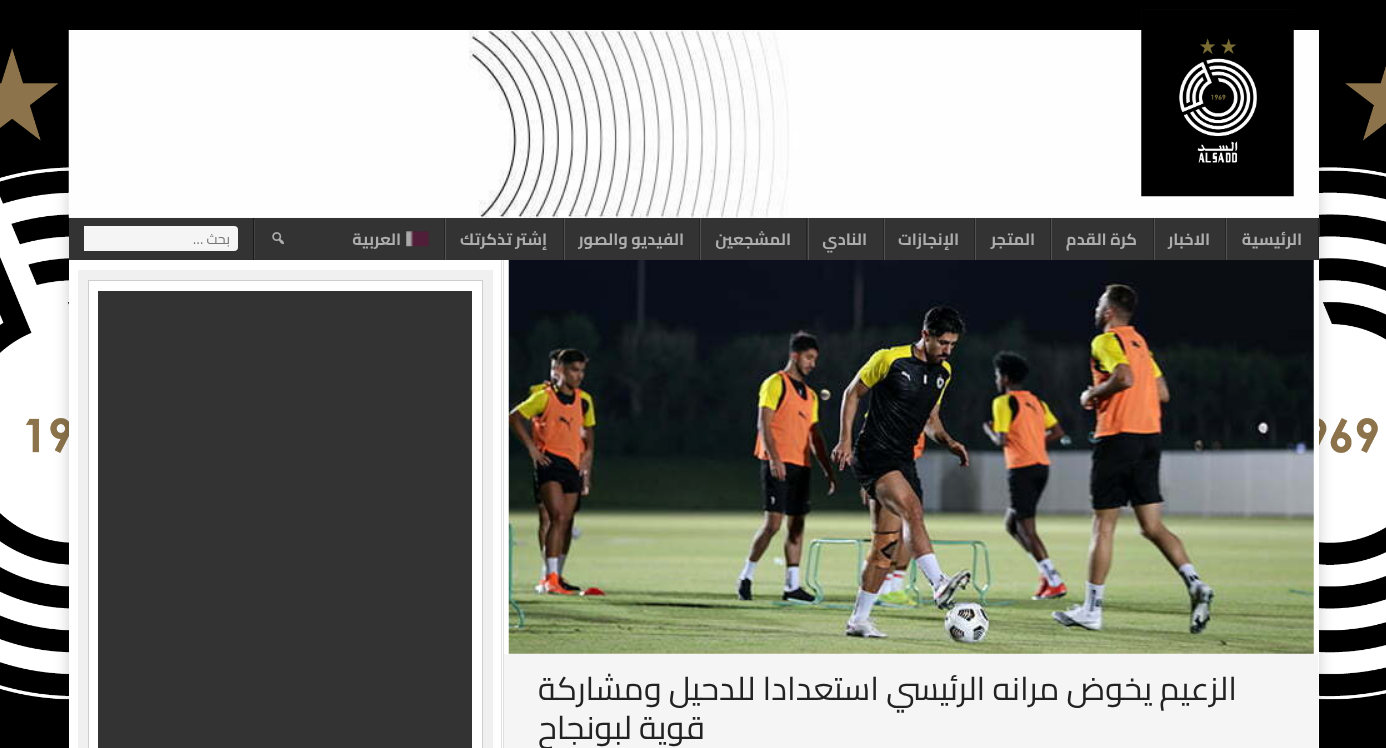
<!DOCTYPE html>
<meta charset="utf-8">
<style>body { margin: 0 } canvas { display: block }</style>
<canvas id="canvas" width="1386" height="748"></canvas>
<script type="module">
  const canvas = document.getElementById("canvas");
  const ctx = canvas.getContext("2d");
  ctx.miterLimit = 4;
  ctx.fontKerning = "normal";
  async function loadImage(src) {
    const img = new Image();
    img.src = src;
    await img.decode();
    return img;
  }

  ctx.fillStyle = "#000000";
  ctx.fillRect(0, 0, 1386, 748);
  ctx.drawImage(await loadImage("img1.png"), 0, 48, 1386, 652);
  ctx.fillStyle = "rgba(0, 0, 0, 0.2)";
  ctx.filter = "blur(7.5px)";
  ctx.beginPath();
  ctx.rect(69, 30, 1250, 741);
  ctx.fill();
  ctx.filter = "none";
  ctx.fillStyle = "#f5f5f5";
  ctx.fillRect(69, 30, 1250, 188);
  ctx.drawImage(await loadImage("img2.png"), 68, 30, 1251, 188);
  ctx.drawImage(await loadImage("img3.png"), 1141, 9, 153, 188);
  ctx.fillStyle = "#333333";
  ctx.fillRect(69, 218, 1249, 42);
  ctx.fillStyle = "rgba(255, 255, 255, 0.15)";
  ctx.fillRect(1319, 218, 1, 42);
  ctx.fillStyle = "#242424";
  ctx.fillRect(1318, 218, 1, 42);
  ctx.direction = "rtl";
  ctx.font = "bold 16.25px Cairo";
  ctx.fillStyle = "#adadad";
  ctx.fillText("الرئيسية", 1302, 245);
  ctx.fillStyle = "#525252";
  ctx.fillRect(1226, 218, 1, 42);
  ctx.fillStyle = "#242424";
  ctx.fillRect(1225, 218, 1, 42);
  ctx.fillStyle = "#adadad";
  ctx.fillText("الاخبار", 1210, 245);
  ctx.fillStyle = "#525252";
  ctx.fillRect(1154, 218, 1, 42);
  ctx.fillStyle = "#242424";
  ctx.fillRect(1153, 218, 1, 42);
  ctx.fillStyle = "#adadad";
  ctx.fillText("كرة القدم", 1137, 245);
  ctx.fillStyle = "#525252";
  ctx.fillRect(1051, 218, 1, 42);
  ctx.fillStyle = "#242424";
  ctx.fillRect(1050, 218, 1, 42);
  ctx.fillStyle = "#adadad";
  ctx.fillText("المتجر", 1035, 245);
  ctx.fillStyle = "#525252";
  ctx.fillRect(975, 218, 1, 42);
  ctx.fillStyle = "#242424";
  ctx.fillRect(974, 218, 1, 42);
  ctx.fillStyle = "#adadad";
  ctx.fillText("الإنجازات", 959, 245);
  ctx.fillStyle = "#525252";
  ctx.fillRect(884, 218, 1, 42);
  ctx.fillStyle = "#242424";
  ctx.fillRect(883, 218, 1, 42);
  ctx.fillStyle = "#adadad";
  ctx.fillText("النادي", 867, 245);
  ctx.fillStyle = "#525252";
  ctx.fillRect(808, 218, 1, 42);
  ctx.fillStyle = "#242424";
  ctx.fillRect(806, 218, 1, 42);
  ctx.fillStyle = "#adadad";
  ctx.fillText("المشجعين", 791, 245);
  ctx.fillStyle = "#525252";
  ctx.fillRect(700, 218, 1, 42);
  ctx.fillStyle = "#242424";
  ctx.fillRect(699, 218, 1, 42);
  ctx.fillStyle = "#adadad";
  ctx.fillText("الفيديو والصور", 684, 245);
  ctx.fillStyle = "#525252";
  ctx.fillRect(564, 218, 1, 42);
  ctx.fillStyle = "#242424";
  ctx.fillRect(563, 218, 1, 42);
  ctx.fillStyle = "#adadad";
  ctx.fillText("إشتر تذكرتك", 547, 245);
  ctx.fillStyle = "#525252";
  ctx.fillRect(445, 218, 1, 42);
  ctx.fillStyle = "#242424";
  ctx.fillRect(444, 218, 1, 42);
  ctx.drawImage(await loadImage("img4.png"), 406, 231, 23, 16);
  ctx.fillStyle = "#adadad";
  ctx.fillText("العربية", 401, 245);
  ctx.fillStyle = "#454545";
  ctx.fillRect(254, 220, 1, 39);
  ctx.drawImage(await loadImage("img5.png"), 272, 232, 12, 13);
  ctx.fillStyle = "#1a1a1a";
  ctx.fillRect(253, 218, 1, 42);
  ctx.fillStyle = "#f5f5f5";
  ctx.beginPath();
  ctx.roundRect(84, 226, 154, 25, [0, 4, 4, 0]);
  ctx.fill();
  ctx.font = "14px Cairo";
  ctx.fillStyle = "#757575";
  ctx.fillText("بحث …", 230, 244);
  ctx.fillStyle = "#ffffff";
  ctx.fillRect(69, 260, 1250, 488);
  ctx.fillStyle = "#e0e0e0";
  ctx.fillRect(503, 260, 1, 488);
  ctx.drawImage(await loadImage("img6.png"), 508, 260, 806, 394);
  ctx.fillStyle = "#f5f5f5";
  ctx.fillRect(504, 654, 814, 94);
  ctx.font = "32.5px Cairo";
  ctx.fillStyle = "#222222";
  ctx.fillText("الزعيم يخوض مرانه الرئيسي استعدادا للدحيل ومشاركة", 1237, 700);
  ctx.fillText("قوية لبونجاح", 705, 739);
  ctx.fillStyle = "#e0e0e0";
  ctx.fillRect(501, 260, 1, 488);
  ctx.strokeStyle = "#cdcdcd";
  ctx.strokeRect(88.5, 280.5, 394, 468);
  ctx.fillStyle = "#333333";
  ctx.fillRect(98, 291, 374, 457);
  ctx.strokeStyle = "#f0f0f0";
  ctx.lineWidth = 10;
  ctx.strokeRect(83, 275, 405, 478);
</script>
